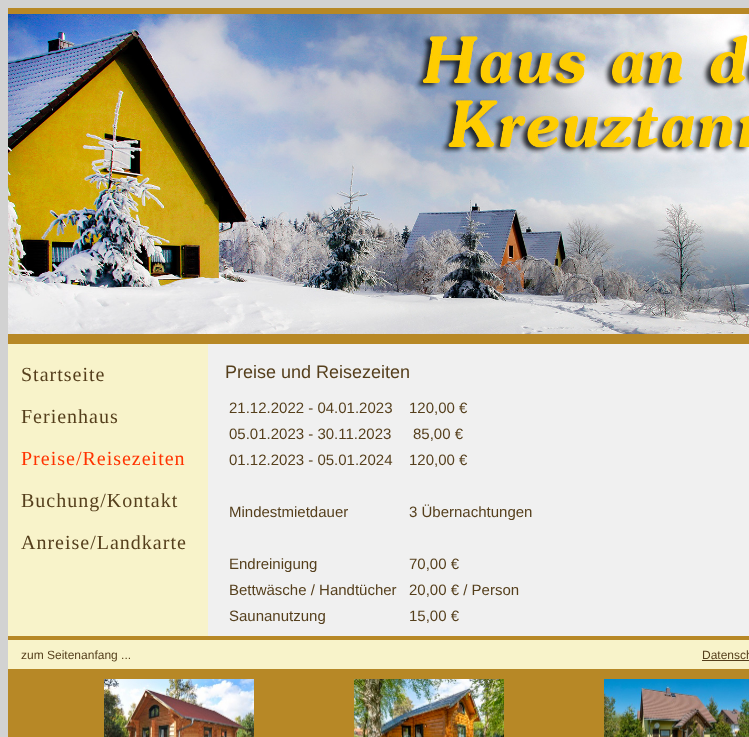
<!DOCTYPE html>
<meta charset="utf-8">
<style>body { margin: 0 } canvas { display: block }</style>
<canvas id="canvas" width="749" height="737"></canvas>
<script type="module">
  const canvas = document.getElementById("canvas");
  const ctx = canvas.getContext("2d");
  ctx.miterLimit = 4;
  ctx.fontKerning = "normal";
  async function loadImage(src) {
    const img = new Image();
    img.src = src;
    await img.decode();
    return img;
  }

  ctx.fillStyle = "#d2d2d2";
  ctx.fillRect(0, 0, 749, 737);
  ctx.fillStyle = "#b78826";
  ctx.fillRect(8, 8, 741, 6);
  ctx.drawImage(await loadImage("img1.png"), 8, 14, 741, 320);
  ctx.fillRect(8, 334, 741, 10);
  ctx.fillStyle = "#f8f3ca";
  ctx.fillRect(8, 344, 200, 292);
  ctx.letterSpacing = "1px";
  ctx.font = "20px Liberation Serif";
  ctx.fillStyle = "#553f1c";
  ctx.fillText("Startseite", 21, 381);
  ctx.fillText("Ferienhaus", 21, 423);
  ctx.fillStyle = "#ff3300";
  ctx.fillText("Preise/Reisezeiten", 21, 465);
  ctx.fillStyle = "#553f1c";
  ctx.fillText("Buchung/Kontakt", 21, 507);
  ctx.fillText("Anreise/Landkarte", 21, 549);
  ctx.fillStyle = "#f0f0f0";
  ctx.fillRect(208, 344, 541, 292);
  ctx.letterSpacing = "0px";
  ctx.font = "18px Liberation Sans";
  ctx.fillStyle = "#553f1c";
  ctx.fillText("Preise und Reisezeiten", 225, 378);
  ctx.font = "15px Liberation Sans";
  ctx.fillText("21.12.2022 - 04.01.2023", 229, 413);
  ctx.fillText("120,00 €", 409, 413);
  ctx.fillText("05.01.2023 - 30.11.2023", 229, 439);
  ctx.fillText("85,00 €", 413, 439);
  ctx.fillText("01.12.2023 - 05.01.2024", 229, 465);
  ctx.fillText("120,00 €", 409, 465);
  ctx.fillText("Mindestmietdauer", 229, 517);
  ctx.fillText("3 Übernachtungen", 409, 517);
  ctx.fillText("Endreinigung", 229, 569);
  ctx.fillText("70,00 €", 409, 569);
  ctx.fillText("Bettwäsche / Handtücher", 229, 595);
  ctx.fillText("20,00 € / Person", 409, 595);
  ctx.fillText("Saunanutzung", 229, 621);
  ctx.fillText("15,00 €", 409, 621);
  ctx.fillStyle = "#b78826";
  ctx.fillRect(8, 636, 741, 4);
  ctx.fillStyle = "#f8f3ca";
  ctx.fillRect(8, 640, 741, 29);
  ctx.font = "12px Liberation Sans";
  ctx.fillStyle = "#553f1c";
  ctx.fillText("zum Seitenanfang ...", 21, 659);
  ctx.fillText("Datensch", 702, 659);
  ctx.fillRect(702, 660, 47, 1);
  ctx.fillStyle = "#b78826";
  ctx.fillRect(8, 669, 741, 68);
  ctx.drawImage(await loadImage("img2.png"), 104, 679, 150, 58);
  ctx.drawImage(await loadImage("img3.png"), 354, 679, 150, 58);
  ctx.drawImage(await loadImage("img4.png"), 604, 679, 145, 58);
</script>
